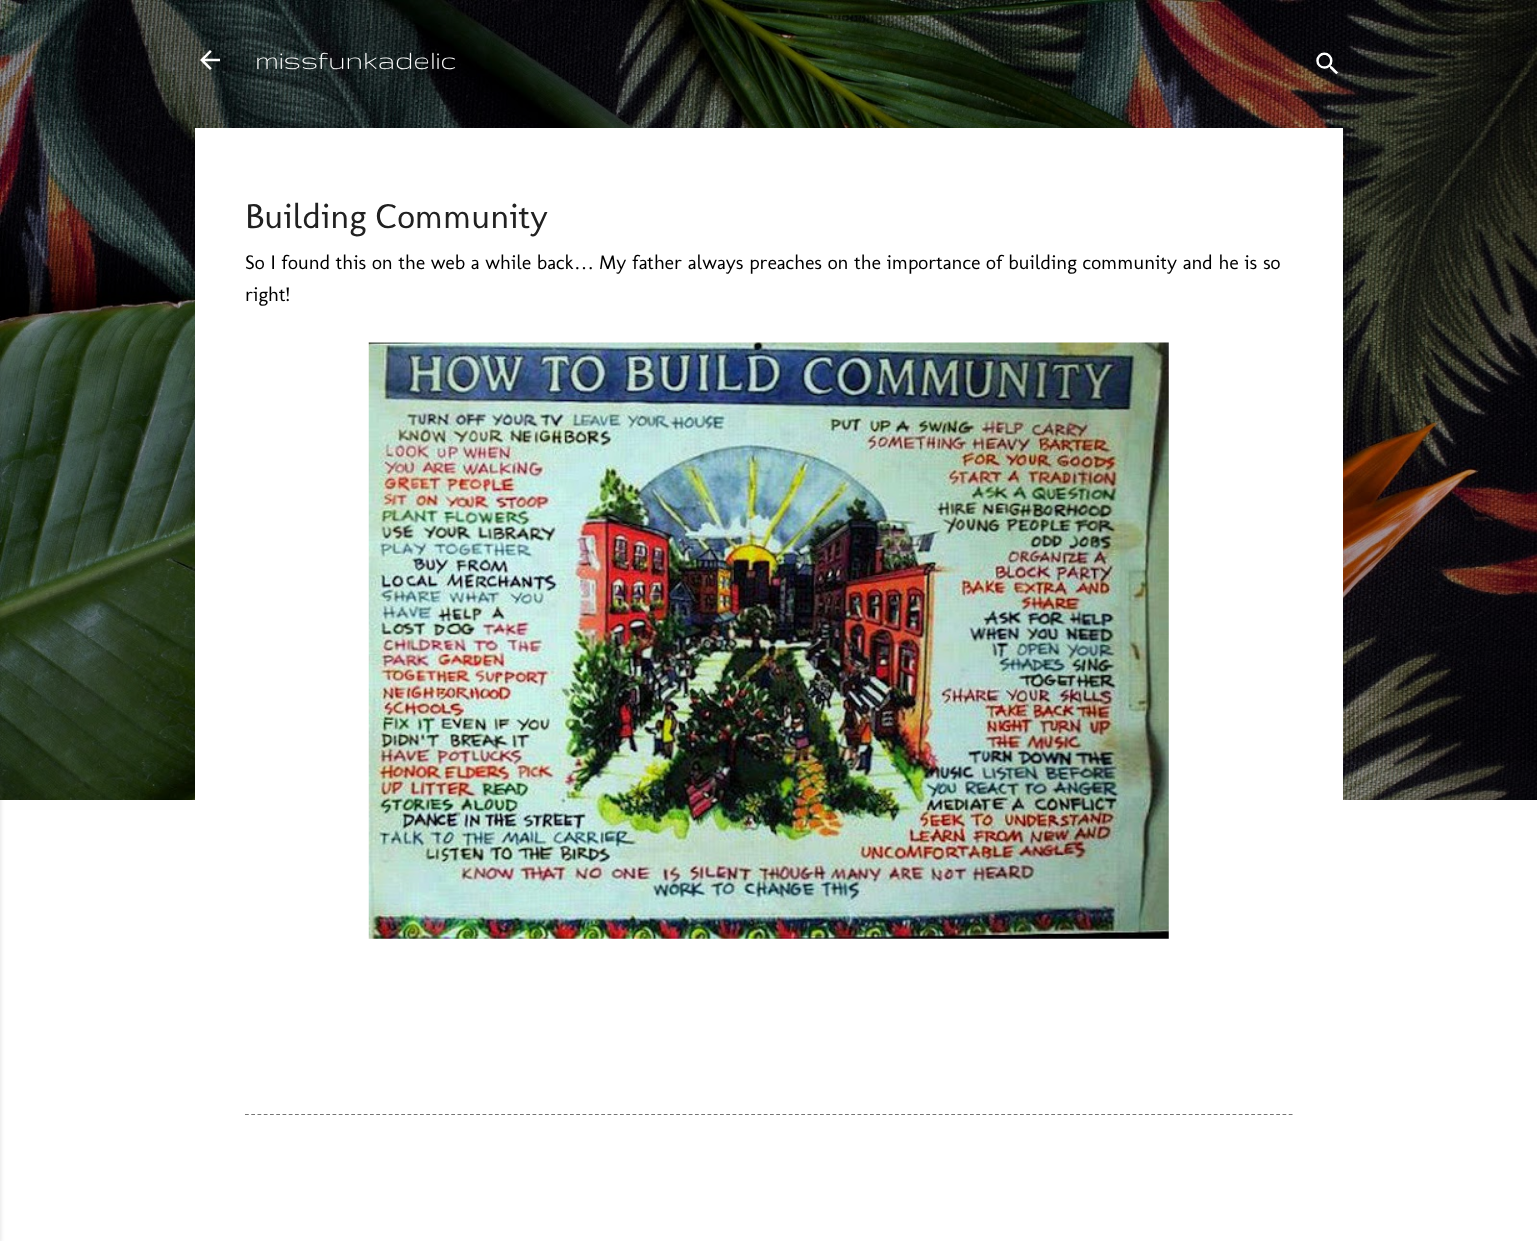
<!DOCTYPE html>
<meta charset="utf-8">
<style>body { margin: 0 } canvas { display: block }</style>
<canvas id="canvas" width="1537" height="1241"></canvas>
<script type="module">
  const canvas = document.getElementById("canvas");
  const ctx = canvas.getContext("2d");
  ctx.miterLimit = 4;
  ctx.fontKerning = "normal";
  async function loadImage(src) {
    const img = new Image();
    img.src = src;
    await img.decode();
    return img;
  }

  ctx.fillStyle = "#ffffff";
  ctx.fillRect(0, 0, 1537, 1241);
  ctx.drawImage(await loadImage("img1.png"), 0, 0, 1537, 800);
  ctx.fillStyle = "rgba(0, 0, 0, 0.1)";
  ctx.filter = "blur(2px)";
  ctx.beginPath();
  ctx.rect(-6, 1, 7, 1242);
  ctx.fill();
  ctx.filter = "none";
  ctx.drawImage(await loadImage("img2.png"), 200, 50, 20, 20);
  ctx.font = "30px Gruppo";
  ctx.fillStyle = "#ffffff";
  ctx.fillText("missfunkadelic", 255, 69);
  ctx.drawImage(await loadImage("img3.png"), 1316, 52, 22, 23);
  ctx.fillRect(195, 128, 1148, 672);
  ctx.font = "35px Molengo";
  ctx.fillStyle = "#212121";
  ctx.fillText("Building Community", 245, 228);
  ctx.font = "20px Molengo";
  ctx.fillStyle = "#000000";
  ctx.fillText("So I found this on the web a while back", 245, 269);
  ctx.font = "20px Liberation Serif";
  ctx.fillText("…", 574, 269);
  ctx.font = "20px Molengo";
  ctx.fillText("My father always preaches on the importance of building community and he is so", 599, 269);
  ctx.fillText("right!", 245, 301);
  ctx.drawImage(await loadImage("img4.png"), 368, 342, 801, 597);
  ctx.beginPath();
  ctx.moveTo(245, 1114.5);
  ctx.lineTo(1292.5, 1114.5);
  ctx.strokeStyle = "#757575";
  ctx.lineWidth = 1.2;
  ctx.setLineDash([3.75, 2.5]);
  ctx.stroke();
</script>
